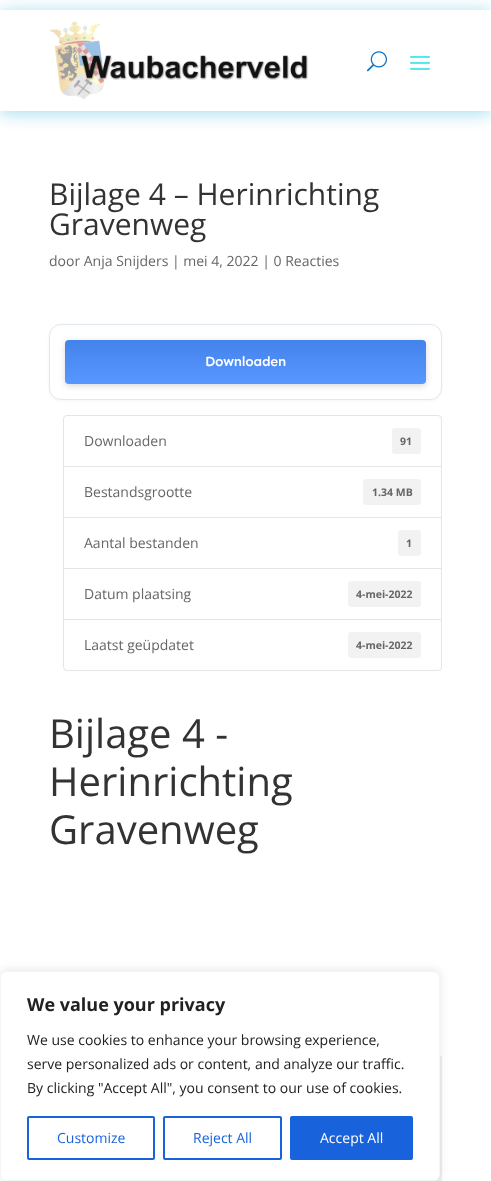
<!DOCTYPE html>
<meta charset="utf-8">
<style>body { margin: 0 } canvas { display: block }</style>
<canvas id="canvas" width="491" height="1181"></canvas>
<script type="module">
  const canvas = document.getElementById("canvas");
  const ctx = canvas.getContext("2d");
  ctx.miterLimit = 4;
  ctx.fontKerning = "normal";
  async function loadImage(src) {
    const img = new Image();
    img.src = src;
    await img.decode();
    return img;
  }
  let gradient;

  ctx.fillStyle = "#ffffff";
  ctx.fillRect(0, 0, 491, 1181);
  ctx.save();
  ctx.beginPath();
  ctx.moveTo(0, 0);
  ctx.lineTo(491, 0);
  ctx.lineTo(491, 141);
  ctx.lineTo(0, 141);
  ctx.closePath();
  ctx.moveTo(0, 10);
  ctx.lineTo(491, 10);
  ctx.lineTo(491, 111);
  ctx.lineTo(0, 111);
  ctx.closePath();
  ctx.clip("evenodd");
  ctx.fillStyle = "rgba(12, 165, 204, 0.4)";
  ctx.filter = "blur(9px)";
  ctx.beginPath();
  ctx.rect(0, 12, 491, 101);
  ctx.fill();
  ctx.filter = "none";
  ctx.restore();
  ctx.drawImage(await loadImage("img1.png"), 50, 21, 258, 79);
  ctx.drawImage(await loadImage("img2.png"), 367, 51, 20, 21);
  ctx.drawImage(await loadImage("img3.png"), 410, 55, 20, 15);
  ctx.font = "30px Open Sans";
  ctx.fillStyle = "#333333";
  ctx.fillText("Bijlage 4 – Herinrichting", 49, 205);
  ctx.fillText("Gravenweg", 49, 235);
  ctx.font = "14px Open Sans";
  ctx.fillStyle = "#666666";
  ctx.fillText("door Anja Snijders | mei 4, 2022 | 0 Reacties", 49, 266);
  ctx.fillStyle = "rgba(0, 0, 0, 0.04)";
  ctx.filter = "blur(1.5px)";
  ctx.beginPath();
  ctx.roundRect(49, 325, 393, 76, 12);
  ctx.fill();
  ctx.filter = "none";
  ctx.fillStyle = "#ffffff";
  ctx.beginPath();
  ctx.roundRect(49.5, 324.5, 392, 75, 11.5);
  ctx.fill();
  ctx.strokeStyle = "#e2e8f0";
  ctx.stroke();
  ctx.fillStyle = "rgba(0, 0, 0, 0.15)";
  ctx.filter = "blur(3px)";
  ctx.beginPath();
  ctx.roundRect(65, 342, 361, 44, 4);
  ctx.fill();
  ctx.filter = "none";
  ctx.fillStyle = "#4a8eff";
  ctx.beginPath();
  ctx.roundRect(65, 340, 361, 44, 4);
  ctx.fill();
  gradient = ctx.createLinearGradient(246, 340, 246, 384);
  gradient.addColorStop(0, "rgba(0, 0, 0, 0.08)");
  gradient.addColorStop(1, "rgba(255, 255, 255, 0.08)");
  ctx.fillStyle = gradient;
  ctx.beginPath();
  ctx.roundRect(65, 340, 361, 44, 4);
  ctx.fill();
  ctx.letterSpacing = "-0.25px";
  ctx.font = "600 14px Sen";
  ctx.fillStyle = "#ffffff";
  ctx.fillText("Downloaden", 205, 366);
  ctx.beginPath();
  ctx.roundRect(63.5, 415.5, 378, 51, [3.5, 3.5, 0, 0]);
  ctx.strokeStyle = "#e5e5e5";
  ctx.stroke();
  ctx.letterSpacing = "0px";
  ctx.font = "14px Open Sans";
  ctx.fillStyle = "#666666";
  ctx.fillText("Downloaden", 84, 446);
  ctx.fillStyle = "#f2f2f2";
  ctx.beginPath();
  ctx.roundRect(392, 428, 29, 26, 3);
  ctx.fill();
  ctx.font = "bold 10.5px Open Sans";
  ctx.fillStyle = "#666666";
  ctx.fillText("91", 400, 445);
  ctx.strokeRect(63.5, 466.5, 378, 51);
  ctx.font = "14px Open Sans";
  ctx.fillText("Bestandsgrootte", 84, 497);
  ctx.fillStyle = "#f2f2f2";
  ctx.beginPath();
  ctx.roundRect(363, 479, 58, 26, 3);
  ctx.fill();
  ctx.font = "bold 10.5px Open Sans";
  ctx.fillStyle = "#666666";
  ctx.fillText("1.34 MB", 372, 496);
  ctx.strokeRect(63.5, 517.5, 378, 51);
  ctx.font = "14px Open Sans";
  ctx.fillText("Aantal bestanden", 84, 548);
  ctx.fillStyle = "#f2f2f2";
  ctx.beginPath();
  ctx.roundRect(398, 530, 23, 26, 3);
  ctx.fill();
  ctx.font = "bold 10.5px Open Sans";
  ctx.fillStyle = "#666666";
  ctx.fillText("1", 406, 547);
  ctx.strokeRect(63.5, 568.5, 378, 51);
  ctx.font = "14px Open Sans";
  ctx.fillText("Datum plaatsing", 84, 599);
  ctx.fillStyle = "#f2f2f2";
  ctx.beginPath();
  ctx.roundRect(348, 581, 73, 26, 3);
  ctx.fill();
  ctx.font = "bold 10.5px Open Sans";
  ctx.fillStyle = "#666666";
  ctx.fillText("4-mei-2022", 356, 598);
  ctx.fillStyle = "#ffffff";
  ctx.beginPath();
  ctx.roundRect(63.5, 619.5, 378, 51, [0, 0, 3.5, 3.5]);
  ctx.fill();
  ctx.stroke();
  ctx.font = "14px Open Sans";
  ctx.fillStyle = "#666666";
  ctx.fillText("Laatst geüpdatet", 84, 650);
  ctx.fillStyle = "#f2f2f2";
  ctx.beginPath();
  ctx.roundRect(348, 632, 73, 26, 3);
  ctx.fill();
  ctx.font = "bold 10.5px Open Sans";
  ctx.fillStyle = "#666666";
  ctx.fillText("4-mei-2022", 356, 649);
  ctx.font = "40px Open Sans";
  ctx.fillStyle = "#333333";
  ctx.fillText("Bijlage 4 -", 49, 748);
  ctx.fillText("Herinrichting", 49, 796);
  ctx.fillText("Gravenweg", 49, 844);
  ctx.fillStyle = "#eeeeee";
  ctx.fillRect(434, 1056, 8, 125);
  ctx.fillStyle = "rgba(172, 171, 171, 0.3)";
  ctx.filter = "blur(5px)";
  ctx.beginPath();
  ctx.roundRect(0, 970, 440, 210, 6);
  ctx.fill();
  ctx.filter = "none";
  ctx.fillStyle = "#ffffff";
  ctx.beginPath();
  ctx.roundRect(0.5, 971.5, 439, 209, 5.5);
  ctx.fill();
  ctx.strokeStyle = "#f4f4f4";
  ctx.stroke();
  ctx.font = "bold 18px Open Sans";
  ctx.fillStyle = "#212121";
  ctx.fillText("We value your privacy", 27, 1011);
  ctx.font = "14px Open Sans";
  ctx.fillText("We use cookies to enhance your browsing experience,", 27, 1045);
  ctx.fillText("serve personalized ads or content, and analyze our traffic.", 27, 1069);
  ctx.fillText("By clicking \"Accept All\", you consent to our use of cookies.", 27, 1093);
  ctx.beginPath();
  ctx.roundRect(28, 1117, 126, 42, 1);
  ctx.strokeStyle = "#1863dc";
  ctx.lineWidth = 2;
  ctx.stroke();
  ctx.fillStyle = "#1863dc";
  ctx.fillText("Customize", 57, 1143);
  ctx.beginPath();
  ctx.roundRect(164, 1117, 117, 42, 1);
  ctx.stroke();
  ctx.fillText("Reject All", 193, 1143);
  ctx.beginPath();
  ctx.roundRect(291, 1117, 121, 42, 1);
  ctx.fill();
  ctx.stroke();
  ctx.fillStyle = "#ffffff";
  ctx.fillText("Accept All", 320, 1143);
</script>
